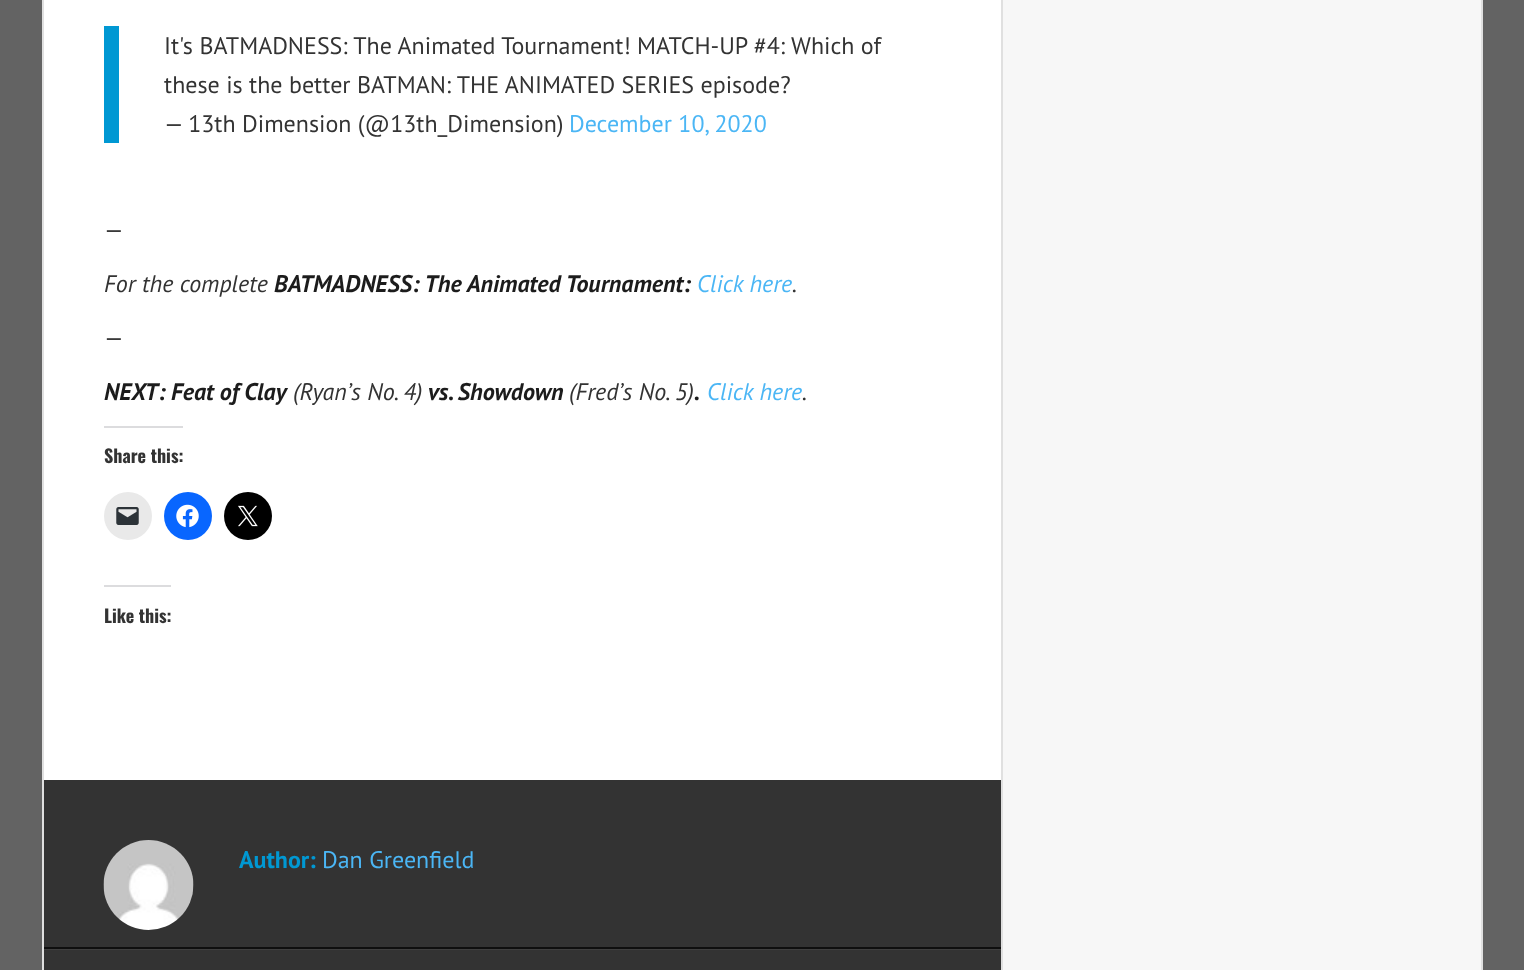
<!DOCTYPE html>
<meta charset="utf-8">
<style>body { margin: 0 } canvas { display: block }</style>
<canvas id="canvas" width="1524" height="970"></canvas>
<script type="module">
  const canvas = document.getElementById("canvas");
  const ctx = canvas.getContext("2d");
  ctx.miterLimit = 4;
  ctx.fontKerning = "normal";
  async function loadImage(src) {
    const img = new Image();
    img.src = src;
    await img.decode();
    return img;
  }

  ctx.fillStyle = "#636363";
  ctx.fillRect(0, 0, 1524, 970);
  ctx.fillStyle = "#ffffff";
  ctx.fillRect(44, 0, 957, 780);
  ctx.fillStyle = "#e0e0e0";
  ctx.fillRect(1481, 0, 2, 970);
  ctx.fillRect(42, 0, 2, 970);
  ctx.fillStyle = "#0098d3";
  ctx.fillRect(104, 26, 15, 117);
  ctx.font = "24px PT Sans";
  ctx.fillStyle = "#333333";
  ctx.fillText("It's BATMADNESS: The Animated Tournament! MATCH-UP #4: Which of", 164, 54);
  ctx.fillText("these is the better BATMAN: THE ANIMATED SERIES episode?", 164, 93);
  ctx.fillText("— 13th Dimension (@13th_Dimension)", 164, 132);
  ctx.fillStyle = "#4bb6f5";
  ctx.fillText("December 10, 2020", 569, 132);
  ctx.fillStyle = "#333333";
  ctx.fillText("—", 104, 238);
  ctx.font = "italic 24px PT Sans";
  ctx.fillText("For the complete", 104, 292);
  ctx.font = "italic bold 24px PT Sans";
  ctx.fillStyle = "#1c1c1c";
  ctx.fillText("BATMADNESS: The Animated Tournament:", 274, 292);
  ctx.font = "italic 24px PT Sans";
  ctx.fillStyle = "#4bb6f5";
  ctx.fillText("Click here", 697, 292);
  ctx.fillStyle = "#333333";
  ctx.fillText(".", 792, 292);
  ctx.font = "24px PT Sans";
  ctx.fillText("—", 104, 346);
  ctx.font = "italic bold 24px PT Sans";
  ctx.fillStyle = "#1c1c1c";
  ctx.fillText("NEXT:", 104, 400);
  ctx.fillText("Feat of Clay", 171, 400);
  ctx.font = "italic 24px PT Sans";
  ctx.fillStyle = "#333333";
  ctx.fillText("(Ryan’s No. 4)", 293, 400);
  ctx.font = "italic bold 24px PT Sans";
  ctx.fillStyle = "#1c1c1c";
  ctx.fillText("vs. Showdown", 428, 400);
  ctx.font = "italic 24px PT Sans";
  ctx.fillStyle = "#333333";
  ctx.fillText("(Fred’s No. 5)", 569, 400);
  ctx.font = "italic bold 24px PT Sans";
  ctx.fillStyle = "#1c1c1c";
  ctx.fillText(".", 694, 400);
  ctx.font = "italic 24px PT Sans";
  ctx.fillStyle = "#4bb6f5";
  ctx.fillText("Click here", 707, 400);
  ctx.fillStyle = "#333333";
  ctx.fillText(".", 802, 400);
  ctx.fillStyle = "#dcdcde";
  ctx.fillRect(104, 426, 79, 2);
  ctx.font = "bold 18px Oswald";
  ctx.fillStyle = "#333333";
  ctx.fillText("Share this:", 104, 463);
  ctx.fillStyle = "#e9e9e9";
  ctx.beginPath();
  ctx.arc(128, 516, 24, 0, Math.PI * 2);
  ctx.fill();
  ctx.drawImage(await loadImage("img1.png"), 116, 507, 23, 18);
  ctx.fillStyle = "#0866ff";
  ctx.beginPath();
  ctx.arc(188, 516, 24, 0, Math.PI * 2);
  ctx.fill();
  ctx.drawImage(await loadImage("img2.png"), 176, 504, 23, 24);
  ctx.fillStyle = "#000000";
  ctx.beginPath();
  ctx.arc(248, 516, 24, 0, Math.PI * 2);
  ctx.fill();
  ctx.drawImage(await loadImage("img3.png"), 238, 505, 20, 22);
  ctx.fillStyle = "#dcdcde";
  ctx.fillRect(104, 585, 67, 2);
  ctx.fillStyle = "#333333";
  ctx.fillText("Like this:", 104, 623);
  ctx.fillRect(44, 780, 957, 167);
  ctx.fillStyle = "#0f0f0f";
  ctx.fillRect(44, 947, 957, 2);
  ctx.drawImage(await loadImage("img4.png"), 103, 840, 91, 90);
  ctx.font = "bold 24px PT Sans";
  ctx.fillStyle = "#0098d3";
  ctx.fillText("Author:", 239, 868);
  ctx.font = "24px PT Sans";
  ctx.fillStyle = "#4bb6f5";
  ctx.fillText("Dan Greenfield", 322, 868);
  ctx.fillStyle = "#333333";
  ctx.fillRect(44, 950, 957, 20);
  ctx.fillStyle = "#404040";
  ctx.fillRect(44, 949, 957, 1);
  ctx.fillStyle = "#f7f7f7";
  ctx.fillRect(1003, 0, 478, 970);
  ctx.fillStyle = "#e0e0e0";
  ctx.fillRect(1001, 0, 2, 970);
</script>
